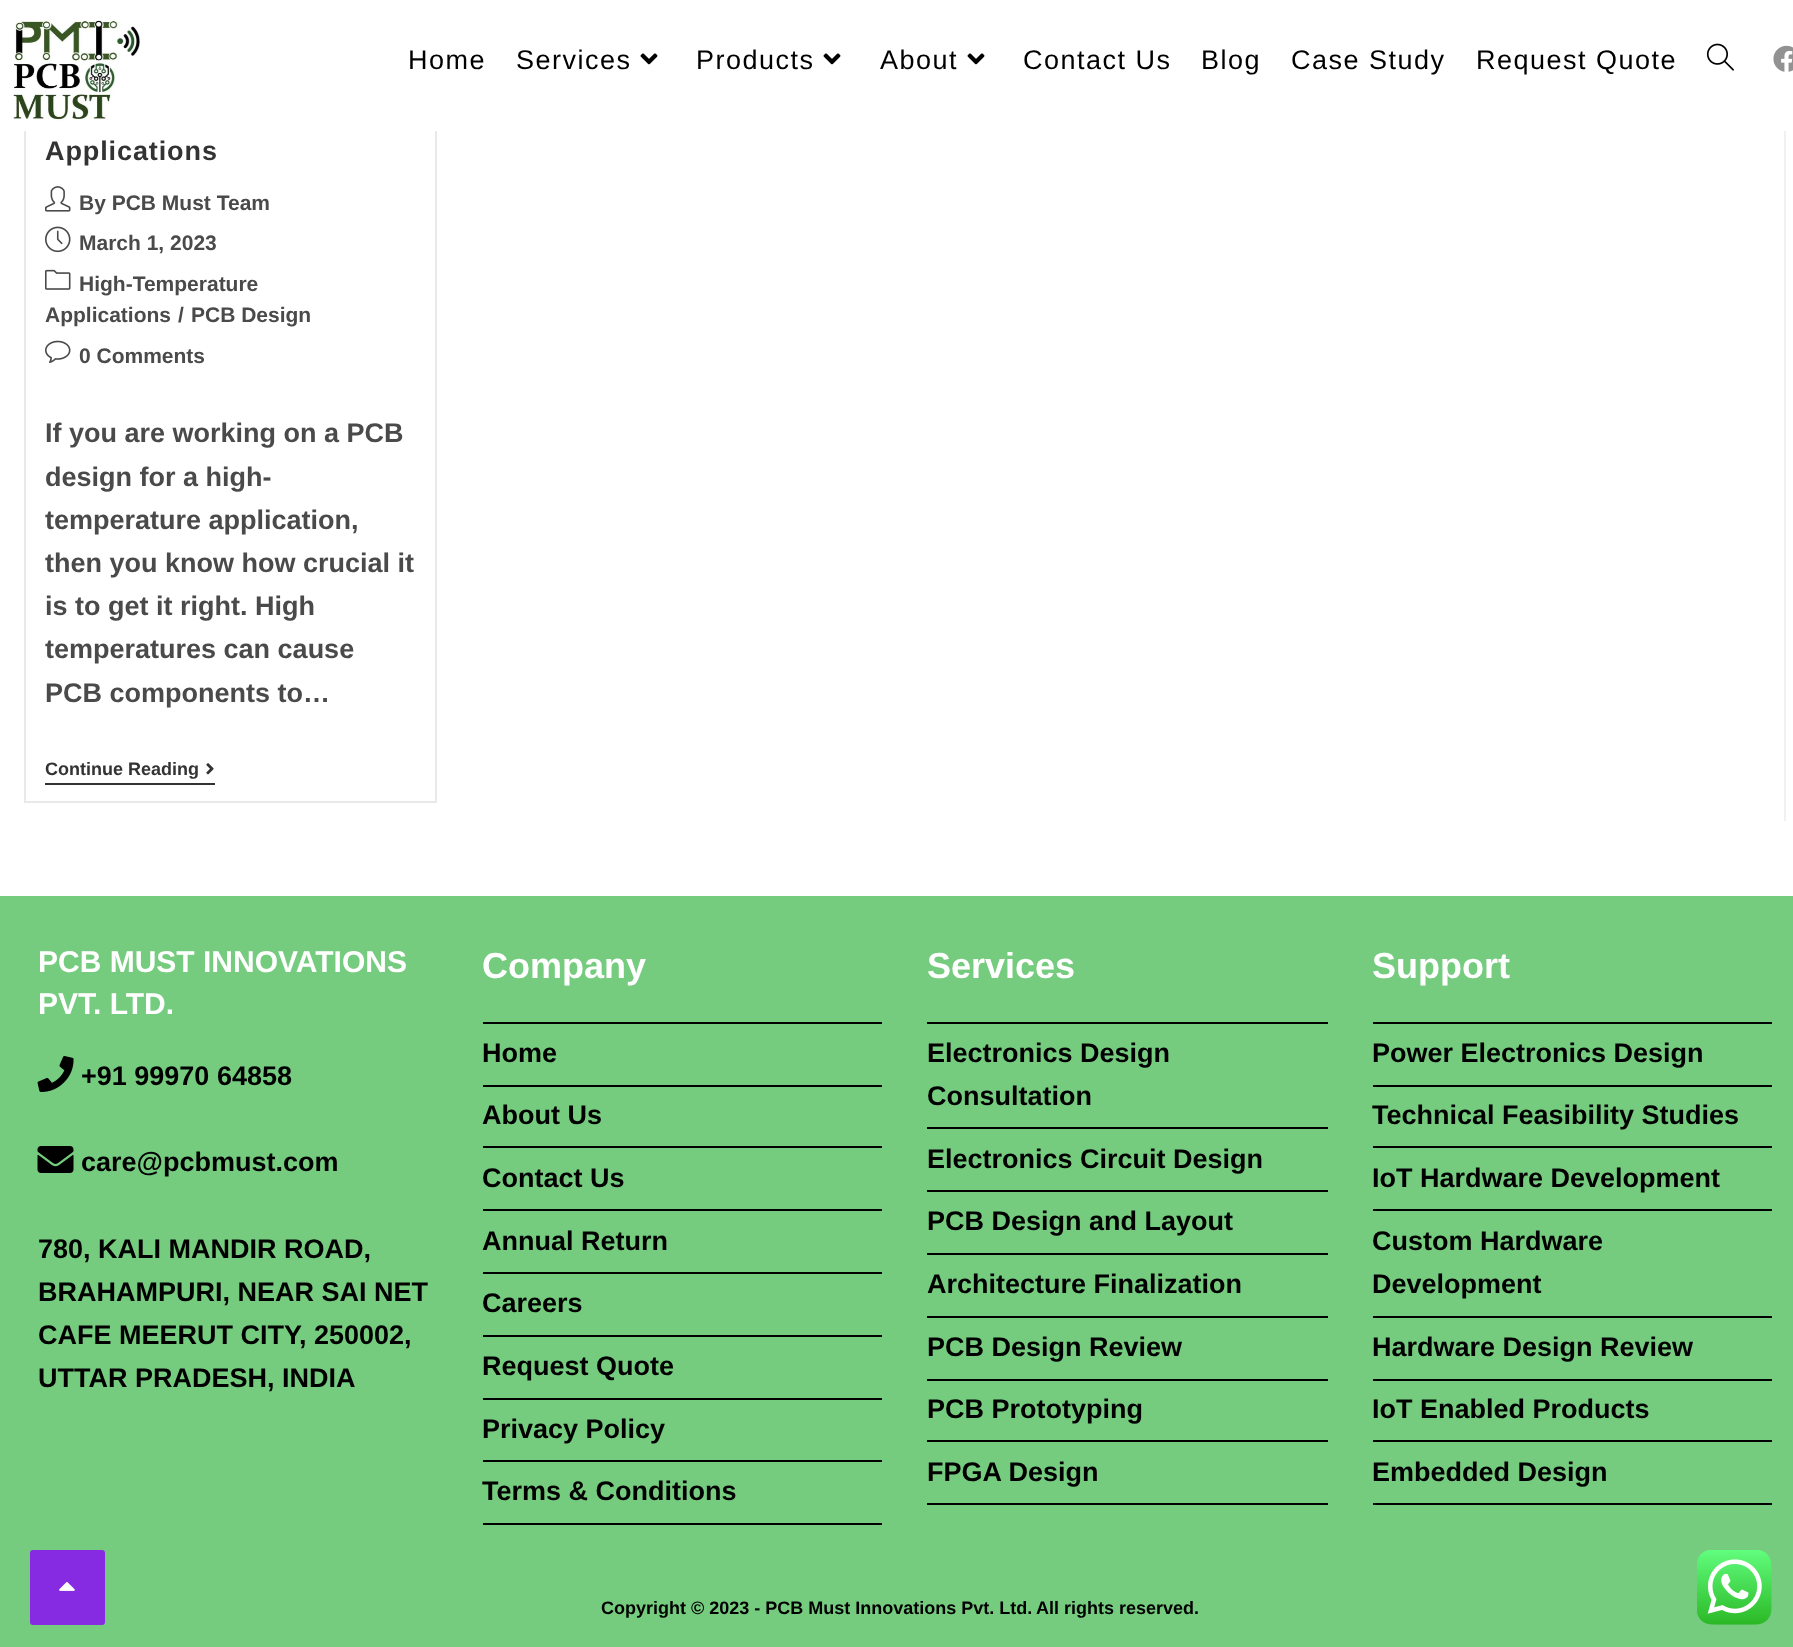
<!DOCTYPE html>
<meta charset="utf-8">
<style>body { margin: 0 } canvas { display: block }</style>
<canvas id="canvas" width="1793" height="1647"></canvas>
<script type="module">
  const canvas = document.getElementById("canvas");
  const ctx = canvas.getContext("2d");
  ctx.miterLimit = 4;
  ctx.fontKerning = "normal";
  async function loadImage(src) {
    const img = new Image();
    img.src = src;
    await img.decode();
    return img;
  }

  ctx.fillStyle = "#ffffff";
  ctx.fillRect(0, 0, 1793, 1647);
  ctx.strokeStyle = "#e9e9e9";
  ctx.lineWidth = 2;
  ctx.strokeRect(25, -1, 411, 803);
  ctx.fillRect(24, 0, 413, 131);
  ctx.drawImage(await loadImage("img1.png"), 13, 20, 127, 101);
  ctx.letterSpacing = "1.5px";
  ctx.font = "27px Liberation Sans";
  ctx.fillStyle = "#000000";
  ctx.fillText("Home", 408, 69);
  ctx.fillText("Services", 516, 69);
  ctx.drawImage(await loadImage("img2.png"), 640, 53, 18, 12);
  ctx.fillText("Products", 696, 69);
  ctx.drawImage(await loadImage("img2.png"), 823, 53, 18, 12);
  ctx.fillText("About", 880, 69);
  ctx.drawImage(await loadImage("img2.png"), 967, 53, 18, 12);
  ctx.fillText("Contact Us", 1023, 69);
  ctx.fillText("Blog", 1201, 69);
  ctx.fillText("Case Study", 1291, 69);
  ctx.fillText("Request Quote", 1476, 69);
  ctx.drawImage(await loadImage("img3.png"), 1706, 43, 28, 28);
  ctx.drawImage(await loadImage("img4.png"), 1773, 45, 20, 27);
  ctx.fillStyle = "#f1f1f1";
  ctx.fillRect(1784, 131, 2, 690);
  ctx.letterSpacing = "0.9px";
  ctx.font = "bold 27px Liberation Sans";
  ctx.fillStyle = "#333333";
  ctx.fillText("Applications", 45, 160);
  ctx.drawImage(await loadImage("img5.png"), 45, 186, 26, 26);
  ctx.letterSpacing = "0px";
  ctx.font = "bold 21px Liberation Sans";
  ctx.fillStyle = "#4a4a4a";
  ctx.fillText("By PCB Must Team", 79, 210);
  ctx.drawImage(await loadImage("img6.png"), 45, 226, 26, 27);
  ctx.fillText("March 1, 2023", 79, 250);
  ctx.drawImage(await loadImage("img7.png"), 45, 269, 26, 21);
  ctx.fillText("High-Temperature", 79, 291);
  ctx.fillText("Applications", 45, 322);
  ctx.fillText("/", 178, 322);
  ctx.fillText("PCB Design", 191, 322);
  ctx.drawImage(await loadImage("img8.png"), 45, 340, 26, 23);
  ctx.fillText("0 Comments", 79, 363);
  ctx.font = "bold 27px Liberation Sans";
  ctx.fillText("If you are working on a PCB", 45, 442);
  ctx.fillText("design for a high-", 45, 486);
  ctx.fillText("temperature application,", 45, 529);
  ctx.fillText("then you know how crucial it", 45, 572);
  ctx.fillText("is to get it right. High", 45, 615);
  ctx.fillText("temperatures can cause", 45, 658);
  ctx.fillText("PCB components to…", 45, 702);
  ctx.fillStyle = "#333333";
  ctx.fillRect(45, 783, 170, 2);
  ctx.font = "bold 18px Liberation Sans";
  ctx.fillText("Continue Reading", 45, 775);
  ctx.drawImage(await loadImage("img9.png"), 206, 763, 8, 12);
  ctx.fillStyle = "#75cc7e";
  ctx.fillRect(0, 896, 1793, 751);
  ctx.font = "bold 30px Liberation Sans";
  ctx.fillStyle = "#ffffff";
  ctx.fillText("PCB MUST INNOVATIONS", 38, 972);
  ctx.fillText("PVT. LTD.", 38, 1014);
  ctx.drawImage(await loadImage("img10.png"), 37, 1056, 37, 36);
  ctx.font = "bold 27px Liberation Sans";
  ctx.fillStyle = "#000000";
  ctx.fillText("+91 99970 64858", 81, 1085);
  ctx.drawImage(await loadImage("img11.png"), 37, 1146, 37, 27);
  ctx.fillText("care@pcbmust.com", 81, 1171);
  ctx.fillText("780, KALI MANDIR ROAD,", 38, 1258);
  ctx.fillText("BRAHAMPURI, NEAR SAI NET", 38, 1301);
  ctx.fillText("CAFE MEERUT CITY, 250002,", 38, 1344);
  ctx.fillText("UTTAR PRADESH, INDIA", 38, 1387);
  ctx.font = "bold 36px Liberation Sans";
  ctx.fillStyle = "#ffffff";
  ctx.fillText("Company", 482, 978);
  ctx.fillStyle = "#000000";
  ctx.fillRect(483, 1022, 399, 2);
  ctx.fillRect(483, 1085, 399, 2);
  ctx.font = "bold 27px Liberation Sans";
  ctx.fillText("Home", 482, 1062);
  ctx.fillRect(483, 1146, 399, 2);
  ctx.fillText("About Us", 482, 1124);
  ctx.fillRect(483, 1209, 399, 2);
  ctx.fillText("Contact Us", 482, 1187);
  ctx.fillRect(483, 1272, 399, 2);
  ctx.fillText("Annual Return", 482, 1250);
  ctx.fillRect(483, 1335, 399, 2);
  ctx.fillText("Careers", 482, 1312);
  ctx.fillRect(483, 1398, 399, 2);
  ctx.fillText("Request Quote", 482, 1375);
  ctx.fillRect(483, 1460, 399, 2);
  ctx.fillText("Privacy Policy", 482, 1438);
  ctx.fillRect(483, 1523, 399, 2);
  ctx.fillText("Terms & Conditions", 482, 1500);
  ctx.font = "bold 36px Liberation Sans";
  ctx.fillStyle = "#ffffff";
  ctx.fillText("Services", 927, 978);
  ctx.fillStyle = "#000000";
  ctx.fillRect(927, 1022, 401, 2);
  ctx.fillRect(927, 1127, 401, 2);
  ctx.font = "bold 27px Liberation Sans";
  ctx.fillText("Electronics Design", 927, 1062);
  ctx.fillText("Consultation", 927, 1105);
  ctx.fillRect(927, 1190, 401, 2);
  ctx.fillText("Electronics Circuit Design", 927, 1168);
  ctx.fillRect(927, 1253, 401, 2);
  ctx.fillText("PCB Design and Layout", 927, 1230);
  ctx.fillRect(927, 1316, 401, 2);
  ctx.fillText("Architecture Finalization", 927, 1293);
  ctx.fillRect(927, 1379, 401, 2);
  ctx.fillText("PCB Design Review", 927, 1356);
  ctx.fillRect(927, 1440, 401, 2);
  ctx.fillText("PCB Prototyping", 927, 1418);
  ctx.fillRect(927, 1503, 401, 2);
  ctx.fillText("FPGA Design", 927, 1481);
  ctx.font = "bold 36px Liberation Sans";
  ctx.fillStyle = "#ffffff";
  ctx.fillText("Support", 1372, 978);
  ctx.fillStyle = "#000000";
  ctx.fillRect(1373, 1022, 399, 2);
  ctx.fillRect(1373, 1085, 399, 2);
  ctx.font = "bold 27px Liberation Sans";
  ctx.fillText("Power Electronics Design", 1372, 1062);
  ctx.fillRect(1373, 1146, 399, 2);
  ctx.fillText("Technical Feasibility Studies", 1372, 1124);
  ctx.fillRect(1373, 1209, 399, 2);
  ctx.fillText("IoT Hardware Development", 1372, 1187);
  ctx.fillRect(1373, 1316, 399, 2);
  ctx.fillText("Custom Hardware", 1372, 1250);
  ctx.fillText("Development", 1372, 1293);
  ctx.fillRect(1373, 1379, 399, 2);
  ctx.fillText("Hardware Design Review", 1372, 1356);
  ctx.fillRect(1373, 1440, 399, 2);
  ctx.fillText("IoT Enabled Products", 1372, 1418);
  ctx.fillRect(1373, 1503, 399, 2);
  ctx.fillText("Embedded Design", 1372, 1481);
  ctx.font = "bold 18px Liberation Sans";
  ctx.fillText("Copyright © 2023 - PCB Must Innovations Pvt. Ltd.", 601, 1614);
  ctx.fillText("All rights reserved.", 1036, 1614);
  ctx.fillStyle = "#872be2";
  ctx.beginPath();
  ctx.roundRect(30, 1550, 75, 75, 3);
  ctx.fill();
  ctx.drawImage(await loadImage("img12.png"), 59, 1582, 16, 9);
  ctx.drawImage(await loadImage("img13.png"), 1697, 1550, 75, 75);
</script>
